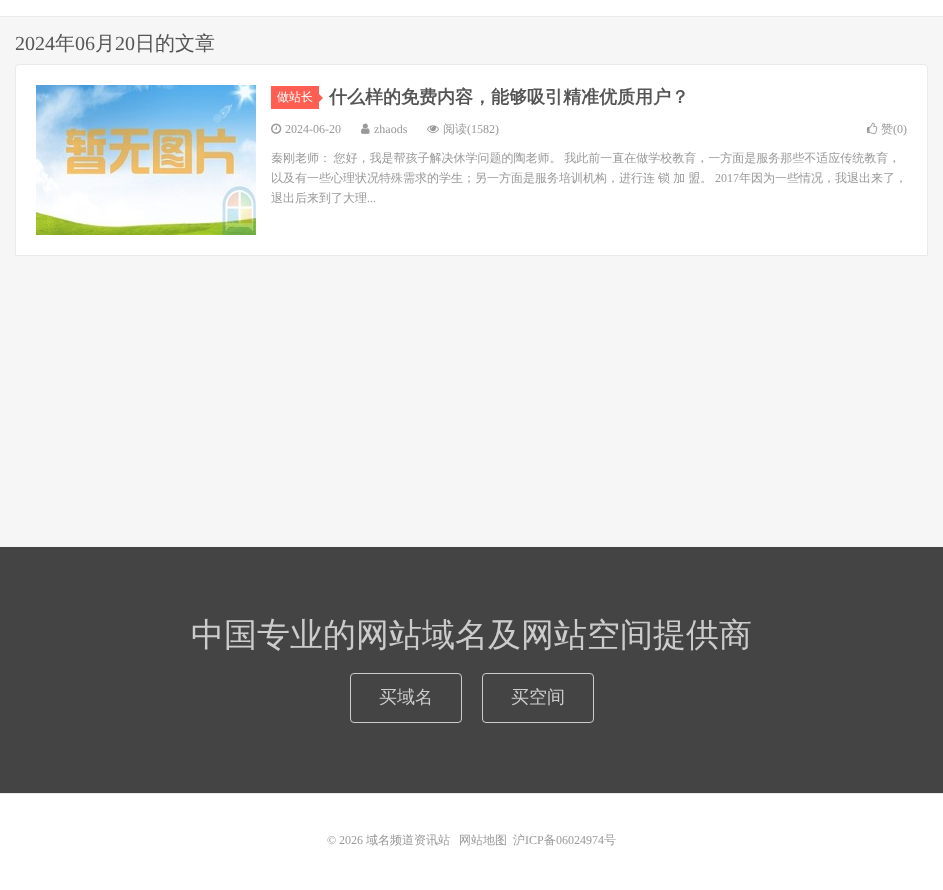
<!DOCTYPE html>
<meta charset="utf-8">
<style>body { margin: 0 } canvas { display: block }</style>
<canvas id="canvas" width="943" height="890"></canvas>
<script type="module">
  const canvas = document.getElementById("canvas");
  const ctx = canvas.getContext("2d");
  ctx.miterLimit = 4;
  ctx.fontKerning = "normal";
  async function loadImage(src) {
    const img = new Image();
    img.src = src;
    await img.decode();
    return img;
  }

  ctx.fillStyle = "#f6f6f6";
  ctx.fillRect(0, 0, 943, 890);
  ctx.fillStyle = "#ffffff";
  ctx.fillRect(0, 0, 943, 16);
  ctx.fillStyle = "#ebebeb";
  ctx.fillRect(0, 16, 943, 1);
  ctx.font = "20px Liberation Serif";
  ctx.fillStyle = "#555555";
  ctx.fillText("2024", 15, 50);
  ctx.font = "500 20px WenQuanYi Zen Hei";
  ctx.fillText("年", 55, 50);
  ctx.font = "20px Liberation Serif";
  ctx.fillText("06", 75, 50);
  ctx.font = "500 20px WenQuanYi Zen Hei";
  ctx.fillText("月", 95, 50);
  ctx.font = "20px Liberation Serif";
  ctx.fillText("20", 115, 50);
  ctx.font = "500 20px WenQuanYi Zen Hei";
  ctx.fillText("日的文章", 135, 50);
  ctx.fillStyle = "#ffffff";
  ctx.beginPath();
  ctx.roundRect(15.5, 64.5, 912, 191, [3.5, 3.5, 0, 0]);
  ctx.fill();
  ctx.strokeStyle = "#eaeaea";
  ctx.stroke();
  ctx.drawImage(await loadImage("img1.png"), 36, 85, 220, 150);
  ctx.fillStyle = "#ff5e52";
  ctx.fillRect(271, 86, 48, 23);
  ctx.font = "500 12px WenQuanYi Zen Hei";
  ctx.fillStyle = "#ffffff";
  ctx.fillText("做站长", 277, 101);
  ctx.fillStyle = "#ff5e52";
  ctx.beginPath();
  ctx.moveTo(319, 102);
  ctx.lineTo(319, 94);
  ctx.lineTo(323, 98);
  ctx.closePath();
  ctx.fill();
  ctx.font = "bold 18px WenQuanYi Zen Hei";
  ctx.fillStyle = "#555555";
  ctx.fillText("什么样的免费内容，能够吸引精准优质用户？", 329, 103);
  ctx.drawImage(await loadImage("img2.png"), 271, 123, 11, 11);
  ctx.font = "12px Liberation Serif";
  ctx.fillStyle = "#999999";
  ctx.fillText("2024-06-20", 285, 133);
  ctx.drawImage(await loadImage("img3.png"), 361, 123, 9, 11);
  ctx.fillText("zhaods", 374, 133);
  ctx.drawImage(await loadImage("img4.png"), 427, 125, 12, 8);
  ctx.font = "500 12px WenQuanYi Zen Hei";
  ctx.fillText("阅读", 443, 133);
  ctx.font = "12px Liberation Serif";
  ctx.fillText("(1582)", 467, 133);
  ctx.drawImage(await loadImage("img5.png"), 867, 122, 11, 12);
  ctx.font = "500 12px WenQuanYi Zen Hei";
  ctx.fillText("赞", 881, 133);
  ctx.font = "12px Liberation Serif";
  ctx.fillText("(0)", 893, 133);
  ctx.wordSpacing = "-1px";
  ctx.font = "500 12px WenQuanYi Zen Hei";
  ctx.fillText("秦刚老师： 您好，我是帮孩子解决休学问题的陶老师。 我此前一直在做学校教育，一方面是服务那些不适应传统教育，", 271, 162);
  ctx.wordSpacing = "-0.5px";
  ctx.fillText("以及有一些心理状况特殊需求的学生；另一方面是服务培训机构，进行连 锁 加 盟。", 271, 182);
  ctx.wordSpacing = "0px";
  ctx.font = "12px Liberation Serif";
  ctx.fillText("2017", 715, 182);
  ctx.font = "500 12px WenQuanYi Zen Hei";
  ctx.fillText("年因为一些情况，我退出来了，", 739, 182);
  ctx.fillText("退出后来到了大理", 271, 202);
  ctx.font = "12px Liberation Serif";
  ctx.fillText("...", 367, 202);
  ctx.fillStyle = "#444444";
  ctx.fillRect(0, 547, 943, 246);
  ctx.font = "500 33px WenQuanYi Zen Hei";
  ctx.fillStyle = "#cccccc";
  ctx.fillText("中国专业的网站域名及网站空间提供商", 191, 646);
  ctx.beginPath();
  ctx.roundRect(350.5, 673.5, 111, 49, 3.5);
  ctx.strokeStyle = "#cccccc";
  ctx.stroke();
  ctx.font = "500 18px WenQuanYi Zen Hei";
  ctx.fillText("买域名", 379, 703);
  ctx.beginPath();
  ctx.roundRect(482.5, 673.5, 111, 49, 3.5);
  ctx.stroke();
  ctx.fillText("买空间", 511, 703);
  ctx.fillStyle = "#ffffff";
  ctx.fillRect(0, 794, 943, 96);
  ctx.fillStyle = "#eaeaea";
  ctx.fillRect(0, 793, 943, 1);
  ctx.font = "12px Liberation Serif";
  ctx.fillStyle = "#999999";
  ctx.fillText("© 2026", 327, 844);
  ctx.font = "500 12px WenQuanYi Zen Hei";
  ctx.fillText("域名频道资讯站", 366, 844);
  ctx.fillText("网站地图", 459, 844);
  ctx.fillText("沪", 513, 844);
  ctx.font = "12px Liberation Serif";
  ctx.fillText("ICP", 525, 844);
  ctx.font = "500 12px WenQuanYi Zen Hei";
  ctx.fillText("备", 544, 844);
  ctx.font = "12px Liberation Serif";
  ctx.fillText("06024974", 556, 844);
  ctx.font = "500 12px WenQuanYi Zen Hei";
  ctx.fillText("号", 604, 844);
</script>
